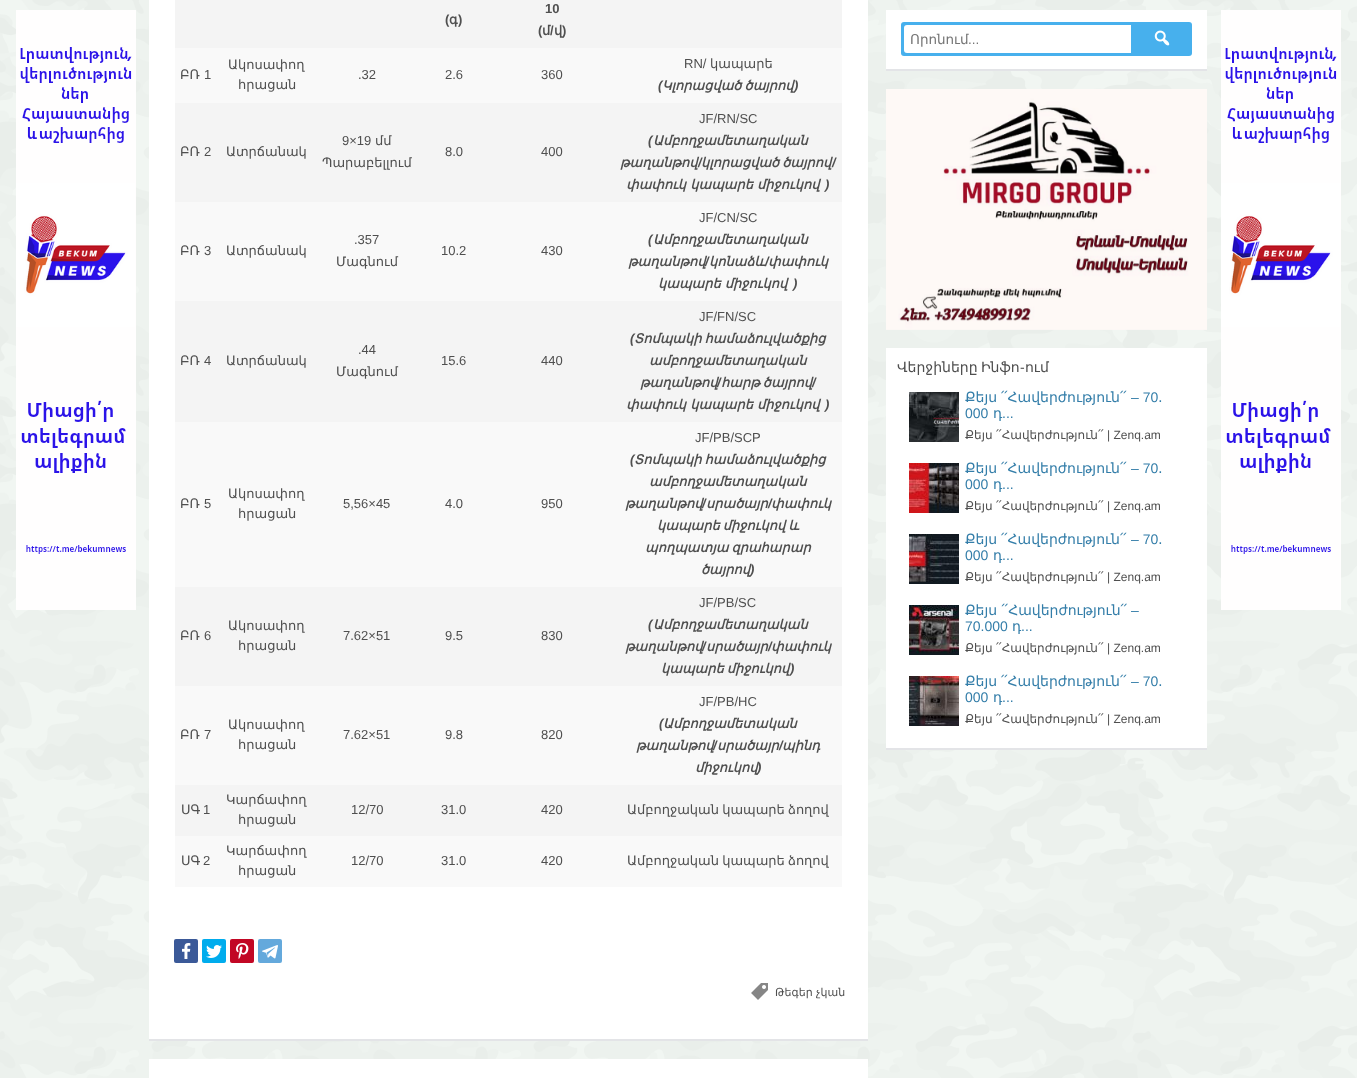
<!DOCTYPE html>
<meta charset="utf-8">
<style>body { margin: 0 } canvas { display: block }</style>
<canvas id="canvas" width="1357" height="1078"></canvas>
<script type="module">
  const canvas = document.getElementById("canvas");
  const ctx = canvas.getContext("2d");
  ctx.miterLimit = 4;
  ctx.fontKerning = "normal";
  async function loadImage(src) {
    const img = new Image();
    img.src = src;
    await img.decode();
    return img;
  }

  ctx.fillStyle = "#f3f8f4";
  ctx.fillRect(0, 0, 1357, 1078);
  ctx.drawImage(await loadImage("img1.png"), 0, 0, 1357, 1078);
  ctx.fillStyle = "#e3e4e7";
  ctx.fillRect(149, 1039, 719, 2);
  ctx.fillStyle = "#ffffff";
  ctx.fillRect(149, 0, 719, 1039);
  ctx.fillStyle = "#f4f4f4";
  ctx.fillRect(175, 0, 667, 48);
  ctx.font = "bold 13px Liberation Sans";
  ctx.fillStyle = "#4f4f4f";
  ctx.fillText("(", 445, 24);
  ctx.font = "bold 13px DejaVu Sans";
  ctx.fillText("գ", 449, 24);
  ctx.font = "bold 13px Liberation Sans";
  ctx.fillText(")", 458, 24);
  ctx.fillText("10", 545, 13);
  ctx.fillText("(", 538, 35);
  ctx.font = "bold 13px DejaVu Sans";
  ctx.fillText("մ", 542, 35);
  ctx.font = "bold 13px Liberation Sans";
  ctx.fillText("/", 550, 35);
  ctx.font = "bold 13px DejaVu Sans";
  ctx.fillText("վ", 554, 35);
  ctx.font = "bold 13px Liberation Sans";
  ctx.fillText(")", 562, 35);
  ctx.fillStyle = "#f9f9f9";
  ctx.fillRect(175, 48, 667, 55);
  ctx.font = "13px DejaVu Sans";
  ctx.fillStyle = "#4f4f4f";
  ctx.fillText("ԲՌ", 180, 79);
  ctx.font = "13px Liberation Sans";
  ctx.fillText("1", 204, 79);
  ctx.font = "13px DejaVu Sans";
  ctx.fillText("Ակոսափող", 228, 69);
  ctx.fillText("հրացան", 238, 89);
  ctx.font = "13px Liberation Sans";
  ctx.fillText(".32", 358, 79);
  ctx.fillText("2.6", 445, 79);
  ctx.fillText("360", 541, 79);
  ctx.fillText("RN/", 684, 68);
  ctx.font = "13px DejaVu Sans";
  ctx.fillText("կապարե", 710, 68);
  ctx.font = "italic bold 13px Liberation Sans";
  ctx.fillText("(", 658, 90);
  ctx.wordSpacing = "-1px";
  ctx.font = "italic bold 13px DejaVu Sans";
  ctx.fillText("Կլորացված ծայրով", 662, 90);
  ctx.wordSpacing = "0px";
  ctx.font = "italic bold 13px Liberation Sans";
  ctx.fillText(")", 794, 90);
  ctx.fillStyle = "#f4f4f4";
  ctx.fillRect(175, 103, 667, 99);
  ctx.font = "13px DejaVu Sans";
  ctx.fillStyle = "#4f4f4f";
  ctx.fillText("ԲՌ", 180, 156);
  ctx.font = "13px Liberation Sans";
  ctx.fillText("2", 204, 156);
  ctx.font = "13px DejaVu Sans";
  ctx.fillText("Ատրճանակ", 226, 156);
  ctx.font = "13px Liberation Sans";
  ctx.fillText("9×19", 342, 145);
  ctx.font = "13px DejaVu Sans";
  ctx.fillText("մմ", 375, 145);
  ctx.fillText("Պարաբելլում", 322, 167);
  ctx.font = "13px Liberation Sans";
  ctx.fillText("8.0", 445, 156);
  ctx.fillText("400", 541, 156);
  ctx.fillText("JF/RN/SC", 699, 123);
  ctx.font = "italic bold 13px Liberation Sans";
  ctx.fillText("(", 648, 145);
  ctx.font = "italic bold 13px DejaVu Sans";
  ctx.fillText("Ամբողջամետաղական", 653, 145);
  ctx.fillText("թաղանթով", 620, 167);
  ctx.font = "italic bold 13px Liberation Sans";
  ctx.fillText("/", 698, 167);
  ctx.wordSpacing = "-1px";
  ctx.font = "italic bold 13px DejaVu Sans";
  ctx.fillText("կլորացված ծայրով", 701, 167);
  ctx.wordSpacing = "0px";
  ctx.font = "italic bold 13px Liberation Sans";
  ctx.fillText("/", 832, 167);
  ctx.font = "italic bold 13px DejaVu Sans";
  ctx.fillText("փափուկ կապարե միջուկով", 626, 189);
  ctx.font = "italic bold 13px Liberation Sans";
  ctx.fillText(")", 825, 189);
  ctx.fillStyle = "#f9f9f9";
  ctx.fillRect(175, 202, 667, 99);
  ctx.font = "13px DejaVu Sans";
  ctx.fillStyle = "#4f4f4f";
  ctx.fillText("ԲՌ", 180, 255);
  ctx.font = "13px Liberation Sans";
  ctx.fillText("3", 204, 255);
  ctx.font = "13px DejaVu Sans";
  ctx.fillText("Ատրճանակ", 226, 255);
  ctx.font = "13px Liberation Sans";
  ctx.fillText(".357", 354, 244);
  ctx.font = "13px DejaVu Sans";
  ctx.fillText("Մագնում", 336, 266);
  ctx.font = "13px Liberation Sans";
  ctx.fillText("10.2", 441, 255);
  ctx.fillText("430", 541, 255);
  ctx.fillText("JF/CN/SC", 699, 222);
  ctx.font = "italic bold 13px Liberation Sans";
  ctx.fillText("(", 648, 244);
  ctx.font = "italic bold 13px DejaVu Sans";
  ctx.fillText("Ամբողջամետաղական", 653, 244);
  ctx.fillText("թաղանթով", 628, 266);
  ctx.font = "italic bold 13px Liberation Sans";
  ctx.fillText("/", 705, 266);
  ctx.font = "italic bold 13px DejaVu Sans";
  ctx.fillText("կոնաձև", 709, 266);
  ctx.font = "italic bold 13px Liberation Sans";
  ctx.fillText("/", 765, 266);
  ctx.font = "italic bold 13px DejaVu Sans";
  ctx.fillText("փափուկ", 768, 266);
  ctx.fillText("կապարե միջուկով", 658, 288);
  ctx.font = "italic bold 13px Liberation Sans";
  ctx.fillText(")", 793, 288);
  ctx.fillStyle = "#f4f4f4";
  ctx.fillRect(175, 301, 667, 121);
  ctx.font = "13px DejaVu Sans";
  ctx.fillStyle = "#4f4f4f";
  ctx.fillText("ԲՌ", 180, 365);
  ctx.font = "13px Liberation Sans";
  ctx.fillText("4", 204, 365);
  ctx.font = "13px DejaVu Sans";
  ctx.fillText("Ատրճանակ", 226, 365);
  ctx.font = "13px Liberation Sans";
  ctx.fillText(".44", 358, 354);
  ctx.font = "13px DejaVu Sans";
  ctx.fillText("Մագնում", 336, 376);
  ctx.font = "13px Liberation Sans";
  ctx.fillText("15.6", 441, 365);
  ctx.fillText("440", 541, 365);
  ctx.fillText("JF/FN/SC", 699, 321);
  ctx.font = "italic bold 13px Liberation Sans";
  ctx.fillText("(", 630, 343);
  ctx.wordSpacing = "-1px";
  ctx.font = "italic bold 13px DejaVu Sans";
  ctx.fillText("Տոմպակի համաձուլվածքից", 634, 343);
  ctx.wordSpacing = "0px";
  ctx.fillText("ամբողջամետաղական", 649, 365);
  ctx.fillText("թաղանթով", 640, 387);
  ctx.font = "italic bold 13px Liberation Sans";
  ctx.fillText("/", 717, 387);
  ctx.wordSpacing = "-1px";
  ctx.font = "italic bold 13px DejaVu Sans";
  ctx.fillText("հարթ ծայրով", 721, 387);
  ctx.wordSpacing = "0px";
  ctx.font = "italic bold 13px Liberation Sans";
  ctx.fillText("/", 812, 387);
  ctx.font = "italic bold 13px DejaVu Sans";
  ctx.fillText("փափուկ կապարե միջուկով", 626, 409);
  ctx.font = "italic bold 13px Liberation Sans";
  ctx.fillText(")", 825, 409);
  ctx.fillStyle = "#f9f9f9";
  ctx.fillRect(175, 422, 667, 165);
  ctx.font = "13px DejaVu Sans";
  ctx.fillStyle = "#4f4f4f";
  ctx.fillText("ԲՌ", 180, 508);
  ctx.font = "13px Liberation Sans";
  ctx.fillText("5", 204, 508);
  ctx.font = "13px DejaVu Sans";
  ctx.fillText("Ակոսափող", 228, 498);
  ctx.fillText("հրացան", 238, 518);
  ctx.font = "13px Liberation Sans";
  ctx.fillText("5,56×45", 343, 508);
  ctx.fillText("4.0", 445, 508);
  ctx.fillText("950", 541, 508);
  ctx.fillText("JF/PB/SCP", 695, 442);
  ctx.font = "italic bold 13px Liberation Sans";
  ctx.fillText("(", 630, 464);
  ctx.wordSpacing = "-1px";
  ctx.font = "italic bold 13px DejaVu Sans";
  ctx.fillText("Տոմպակի համաձուլվածքից", 634, 464);
  ctx.wordSpacing = "0px";
  ctx.fillText("ամբողջամետաղական", 649, 486);
  ctx.fillText("թաղանթով", 625, 508);
  ctx.font = "italic bold 13px Liberation Sans";
  ctx.fillText("/", 702, 508);
  ctx.font = "italic bold 13px DejaVu Sans";
  ctx.fillText("սրածայր", 706, 508);
  ctx.font = "italic bold 13px Liberation Sans";
  ctx.fillText("/", 768, 508);
  ctx.font = "italic bold 13px DejaVu Sans";
  ctx.fillText("փափուկ", 771, 508);
  ctx.wordSpacing = "-1px";
  ctx.fillText("կապարե միջուկով և", 657, 530);
  ctx.fillText("պողպատյա զրահարար", 645, 552);
  ctx.wordSpacing = "0px";
  ctx.fillText("ծայրով", 701, 574);
  ctx.font = "italic bold 13px Liberation Sans";
  ctx.fillText(")", 750, 574);
  ctx.fillStyle = "#f4f4f4";
  ctx.fillRect(175, 587, 667, 99);
  ctx.font = "13px DejaVu Sans";
  ctx.fillStyle = "#4f4f4f";
  ctx.fillText("ԲՌ", 180, 640);
  ctx.font = "13px Liberation Sans";
  ctx.fillText("6", 204, 640);
  ctx.font = "13px DejaVu Sans";
  ctx.fillText("Ակոսափող", 228, 630);
  ctx.fillText("հրացան", 238, 650);
  ctx.font = "13px Liberation Sans";
  ctx.fillText("7.62×51", 343, 640);
  ctx.fillText("9.5", 445, 640);
  ctx.fillText("830", 541, 640);
  ctx.fillText("JF/PB/SC", 699, 607);
  ctx.font = "italic bold 13px Liberation Sans";
  ctx.fillText("(", 648, 629);
  ctx.font = "italic bold 13px DejaVu Sans";
  ctx.fillText("Ամբողջամետաղական", 653, 629);
  ctx.fillText("թաղանթով", 625, 651);
  ctx.font = "italic bold 13px Liberation Sans";
  ctx.fillText("/", 702, 651);
  ctx.font = "italic bold 13px DejaVu Sans";
  ctx.fillText("սրածայր", 706, 651);
  ctx.font = "italic bold 13px Liberation Sans";
  ctx.fillText("/", 768, 651);
  ctx.font = "italic bold 13px DejaVu Sans";
  ctx.fillText("փափուկ", 771, 651);
  ctx.wordSpacing = "-1px";
  ctx.fillText("կապարե միջուկով", 661, 673);
  ctx.wordSpacing = "0px";
  ctx.font = "italic bold 13px Liberation Sans";
  ctx.fillText(")", 790, 673);
  ctx.fillStyle = "#f9f9f9";
  ctx.fillRect(175, 686, 667, 99);
  ctx.font = "13px DejaVu Sans";
  ctx.fillStyle = "#4f4f4f";
  ctx.fillText("ԲՌ", 180, 739);
  ctx.font = "13px Liberation Sans";
  ctx.fillText("7", 204, 739);
  ctx.font = "13px DejaVu Sans";
  ctx.fillText("Ակոսափող", 228, 729);
  ctx.fillText("հրացան", 238, 749);
  ctx.font = "13px Liberation Sans";
  ctx.fillText("7.62×51", 343, 739);
  ctx.fillText("9.8", 445, 739);
  ctx.fillText("820", 541, 739);
  ctx.fillText("JF/PB/HC", 699, 706);
  ctx.font = "italic bold 13px Liberation Sans";
  ctx.fillText("(", 659, 728);
  ctx.font = "italic bold 13px DejaVu Sans";
  ctx.fillText("Ամբողջամետական", 663, 728);
  ctx.fillText("թաղանթով", 636, 750);
  ctx.font = "italic bold 13px Liberation Sans";
  ctx.fillText("/", 713, 750);
  ctx.font = "italic bold 13px DejaVu Sans";
  ctx.fillText("սրածայր", 717, 750);
  ctx.font = "italic bold 13px Liberation Sans";
  ctx.fillText("/", 779, 750);
  ctx.font = "italic bold 13px DejaVu Sans";
  ctx.fillText("պինդ", 782, 750);
  ctx.fillText("միջուկով", 695, 772);
  ctx.font = "italic bold 13px Liberation Sans";
  ctx.fillText(")", 757, 772);
  ctx.fillStyle = "#f4f4f4";
  ctx.fillRect(175, 785, 667, 51);
  ctx.font = "13px DejaVu Sans";
  ctx.fillStyle = "#4f4f4f";
  ctx.fillText("ՍԳ", 181, 814);
  ctx.font = "13px Liberation Sans";
  ctx.fillText("1", 203, 814);
  ctx.font = "13px DejaVu Sans";
  ctx.fillText("Կարճափող", 226, 804);
  ctx.fillText("հրացան", 238, 824);
  ctx.font = "13px Liberation Sans";
  ctx.fillText("12/70", 351, 814);
  ctx.fillText("31.0", 441, 814);
  ctx.fillText("420", 541, 814);
  ctx.wordSpacing = "-1px";
  ctx.font = "13px DejaVu Sans";
  ctx.fillText("Ամբողջական կապարե ձողով", 627, 814);
  ctx.fillStyle = "#f9f9f9";
  ctx.fillRect(175, 836, 667, 51);
  ctx.wordSpacing = "0px";
  ctx.fillStyle = "#4f4f4f";
  ctx.fillText("ՍԳ", 181, 865);
  ctx.font = "13px Liberation Sans";
  ctx.fillText("2", 203, 865);
  ctx.font = "13px DejaVu Sans";
  ctx.fillText("Կարճափող", 226, 855);
  ctx.fillText("հրացան", 238, 875);
  ctx.font = "13px Liberation Sans";
  ctx.fillText("12/70", 351, 865);
  ctx.fillText("31.0", 441, 865);
  ctx.fillText("420", 541, 865);
  ctx.wordSpacing = "-1px";
  ctx.font = "13px DejaVu Sans";
  ctx.fillText("Ամբողջական կապարե ձողով", 627, 865);
  ctx.fillStyle = "#3b5998";
  ctx.beginPath();
  ctx.roundRect(174, 939, 24, 24, 2);
  ctx.fill();
  ctx.drawImage(await loadImage("img2.png"), 182, 943, 9, 16);
  ctx.fillStyle = "#00aced";
  ctx.beginPath();
  ctx.roundRect(202, 939, 24, 24, 2);
  ctx.fill();
  ctx.drawImage(await loadImage("img3.png"), 206, 945, 16, 13);
  ctx.fillStyle = "#c20724";
  ctx.beginPath();
  ctx.roundRect(230, 939, 24, 24, 2);
  ctx.fill();
  ctx.drawImage(await loadImage("img4.png"), 236, 943, 13, 16);
  ctx.fillStyle = "#64a9dc";
  ctx.beginPath();
  ctx.roundRect(258, 939, 24, 24, 2);
  ctx.fill();
  ctx.drawImage(await loadImage("img5.png"), 262, 945, 16, 14);
  ctx.drawImage(await loadImage("img6.png"), 751, 983, 17, 17);
  ctx.wordSpacing = "0px";
  ctx.font = "11px DejaVu Sans";
  ctx.fillStyle = "#4f4f4f";
  ctx.fillText("Թեգեր չկան", 775, 996);
  ctx.fillStyle = "#ffffff";
  ctx.fillRect(149, 1059, 719, 19);
  ctx.fillStyle = "#e3e4e7";
  ctx.fillRect(886, 69, 321, 2);
  ctx.fillStyle = "#ffffff";
  ctx.fillRect(886, 10, 321, 59);
  ctx.fillStyle = "#47b0ed";
  ctx.beginPath();
  ctx.roundRect(901, 22, 291, 34, 3);
  ctx.fill();
  ctx.fillStyle = "#ffffff";
  ctx.beginPath();
  ctx.roundRect(904, 25, 227, 28, [3, 0, 0, 3]);
  ctx.fill();
  ctx.font = "13.5px DejaVu Sans";
  ctx.fillStyle = "#757575";
  ctx.fillText("Որոնում", 910, 44);
  ctx.font = "13.5px Liberation Sans";
  ctx.fillText("...", 968, 44);
  ctx.drawImage(await loadImage("img7.png"), 1154, 30, 16, 16);
  ctx.drawImage(await loadImage("img8.png"), 886, 89, 321, 241);
  ctx.fillStyle = "#e3e4e7";
  ctx.fillRect(886, 748, 321, 2);
  ctx.fillStyle = "#ffffff";
  ctx.fillRect(886, 348, 321, 400);
  ctx.wordSpacing = "-1px";
  ctx.font = "14px DejaVu Sans";
  ctx.fillStyle = "#4f4f4f";
  ctx.fillText("Վերջիները Ինֆո", 897, 372);
  ctx.wordSpacing = "0px";
  ctx.font = "14px Liberation Sans";
  ctx.fillText("-", 1020, 372);
  ctx.font = "14px DejaVu Sans";
  ctx.fillText("ում", 1025, 372);
  ctx.drawImage(await loadImage("img9.png"), 909, 392, 50, 50);
  ctx.fillStyle = "#347ea9";
  ctx.fillText("Քեյս", 965, 402);
  ctx.fillText("՛՛Հավերժություն՛՛", 1001, 402);
  ctx.font = "14px Liberation Sans";
  ctx.fillText("– 70", 1131, 402);
  ctx.font = "14px DejaVu Sans";
  ctx.fillText("․", 1158, 402);
  ctx.font = "14px Liberation Sans";
  ctx.fillText("000", 965, 418);
  ctx.font = "14px DejaVu Sans";
  ctx.fillText("դ", 993, 418);
  ctx.font = "14px Liberation Sans";
  ctx.fillText("...", 1002, 418);
  ctx.font = "12px DejaVu Sans";
  ctx.fillStyle = "#4f4f4f";
  ctx.fillText("Քեյս", 965, 439);
  ctx.fillText("՛՛Հավերժություն՛՛", 996, 439);
  ctx.font = "12px Liberation Sans";
  ctx.fillText("| Zenq.am", 1107, 439);
  ctx.drawImage(await loadImage("img10.png"), 909, 463, 50, 50);
  ctx.font = "14px DejaVu Sans";
  ctx.fillStyle = "#347ea9";
  ctx.fillText("Քեյս", 965, 473);
  ctx.fillText("՛՛Հավերժություն՛՛", 1001, 473);
  ctx.font = "14px Liberation Sans";
  ctx.fillText("– 70", 1131, 473);
  ctx.font = "14px DejaVu Sans";
  ctx.fillText("․", 1158, 473);
  ctx.font = "14px Liberation Sans";
  ctx.fillText("000", 965, 489);
  ctx.font = "14px DejaVu Sans";
  ctx.fillText("դ", 993, 489);
  ctx.font = "14px Liberation Sans";
  ctx.fillText("...", 1002, 489);
  ctx.font = "12px DejaVu Sans";
  ctx.fillStyle = "#4f4f4f";
  ctx.fillText("Քեյս", 965, 510);
  ctx.fillText("՛՛Հավերժություն՛՛", 996, 510);
  ctx.font = "12px Liberation Sans";
  ctx.fillText("| Zenq.am", 1107, 510);
  ctx.drawImage(await loadImage("img11.png"), 909, 534, 50, 50);
  ctx.font = "14px DejaVu Sans";
  ctx.fillStyle = "#347ea9";
  ctx.fillText("Քեյս", 965, 544);
  ctx.fillText("՛՛Հավերժություն՛՛", 1001, 544);
  ctx.font = "14px Liberation Sans";
  ctx.fillText("– 70", 1131, 544);
  ctx.font = "14px DejaVu Sans";
  ctx.fillText("․", 1158, 544);
  ctx.font = "14px Liberation Sans";
  ctx.fillText("000", 965, 560);
  ctx.font = "14px DejaVu Sans";
  ctx.fillText("դ", 993, 560);
  ctx.font = "14px Liberation Sans";
  ctx.fillText("...", 1002, 560);
  ctx.font = "12px DejaVu Sans";
  ctx.fillStyle = "#4f4f4f";
  ctx.fillText("Քեյս", 965, 581);
  ctx.fillText("՛՛Հավերժություն՛՛", 996, 581);
  ctx.font = "12px Liberation Sans";
  ctx.fillText("| Zenq.am", 1107, 581);
  ctx.drawImage(await loadImage("img12.png"), 909, 605, 50, 50);
  ctx.font = "14px DejaVu Sans";
  ctx.fillStyle = "#347ea9";
  ctx.fillText("Քեյս ՛՛Հավերժություն՛՛", 965, 615);
  ctx.font = "14px Liberation Sans";
  ctx.fillText("–", 1131, 615);
  ctx.fillText("70.000", 965, 631);
  ctx.font = "14px DejaVu Sans";
  ctx.fillText("դ", 1012, 631);
  ctx.font = "14px Liberation Sans";
  ctx.fillText("...", 1021, 631);
  ctx.font = "12px DejaVu Sans";
  ctx.fillStyle = "#4f4f4f";
  ctx.fillText("Քեյս", 965, 652);
  ctx.fillText("՛՛Հավերժություն՛՛", 996, 652);
  ctx.font = "12px Liberation Sans";
  ctx.fillText("| Zenq.am", 1107, 652);
  ctx.drawImage(await loadImage("img13.png"), 909, 676, 50, 50);
  ctx.font = "14px DejaVu Sans";
  ctx.fillStyle = "#347ea9";
  ctx.fillText("Քեյս", 965, 686);
  ctx.fillText("՛՛Հավերժություն՛՛", 1001, 686);
  ctx.font = "14px Liberation Sans";
  ctx.fillText("– 70", 1131, 686);
  ctx.font = "14px DejaVu Sans";
  ctx.fillText("․", 1158, 686);
  ctx.font = "14px Liberation Sans";
  ctx.fillText("000", 965, 702);
  ctx.font = "14px DejaVu Sans";
  ctx.fillText("դ", 993, 702);
  ctx.font = "14px Liberation Sans";
  ctx.fillText("...", 1002, 702);
  ctx.font = "12px DejaVu Sans";
  ctx.fillStyle = "#4f4f4f";
  ctx.fillText("Քեյս", 965, 723);
  ctx.fillText("՛՛Հավերժություն՛՛", 996, 723);
  ctx.font = "12px Liberation Sans";
  ctx.fillText("| Zenq.am", 1107, 723);
  ctx.drawImage(await loadImage("img14.png"), 16, 10, 120, 600);
  ctx.drawImage(await loadImage("img14.png"), 1221, 10, 120, 600);
</script>
